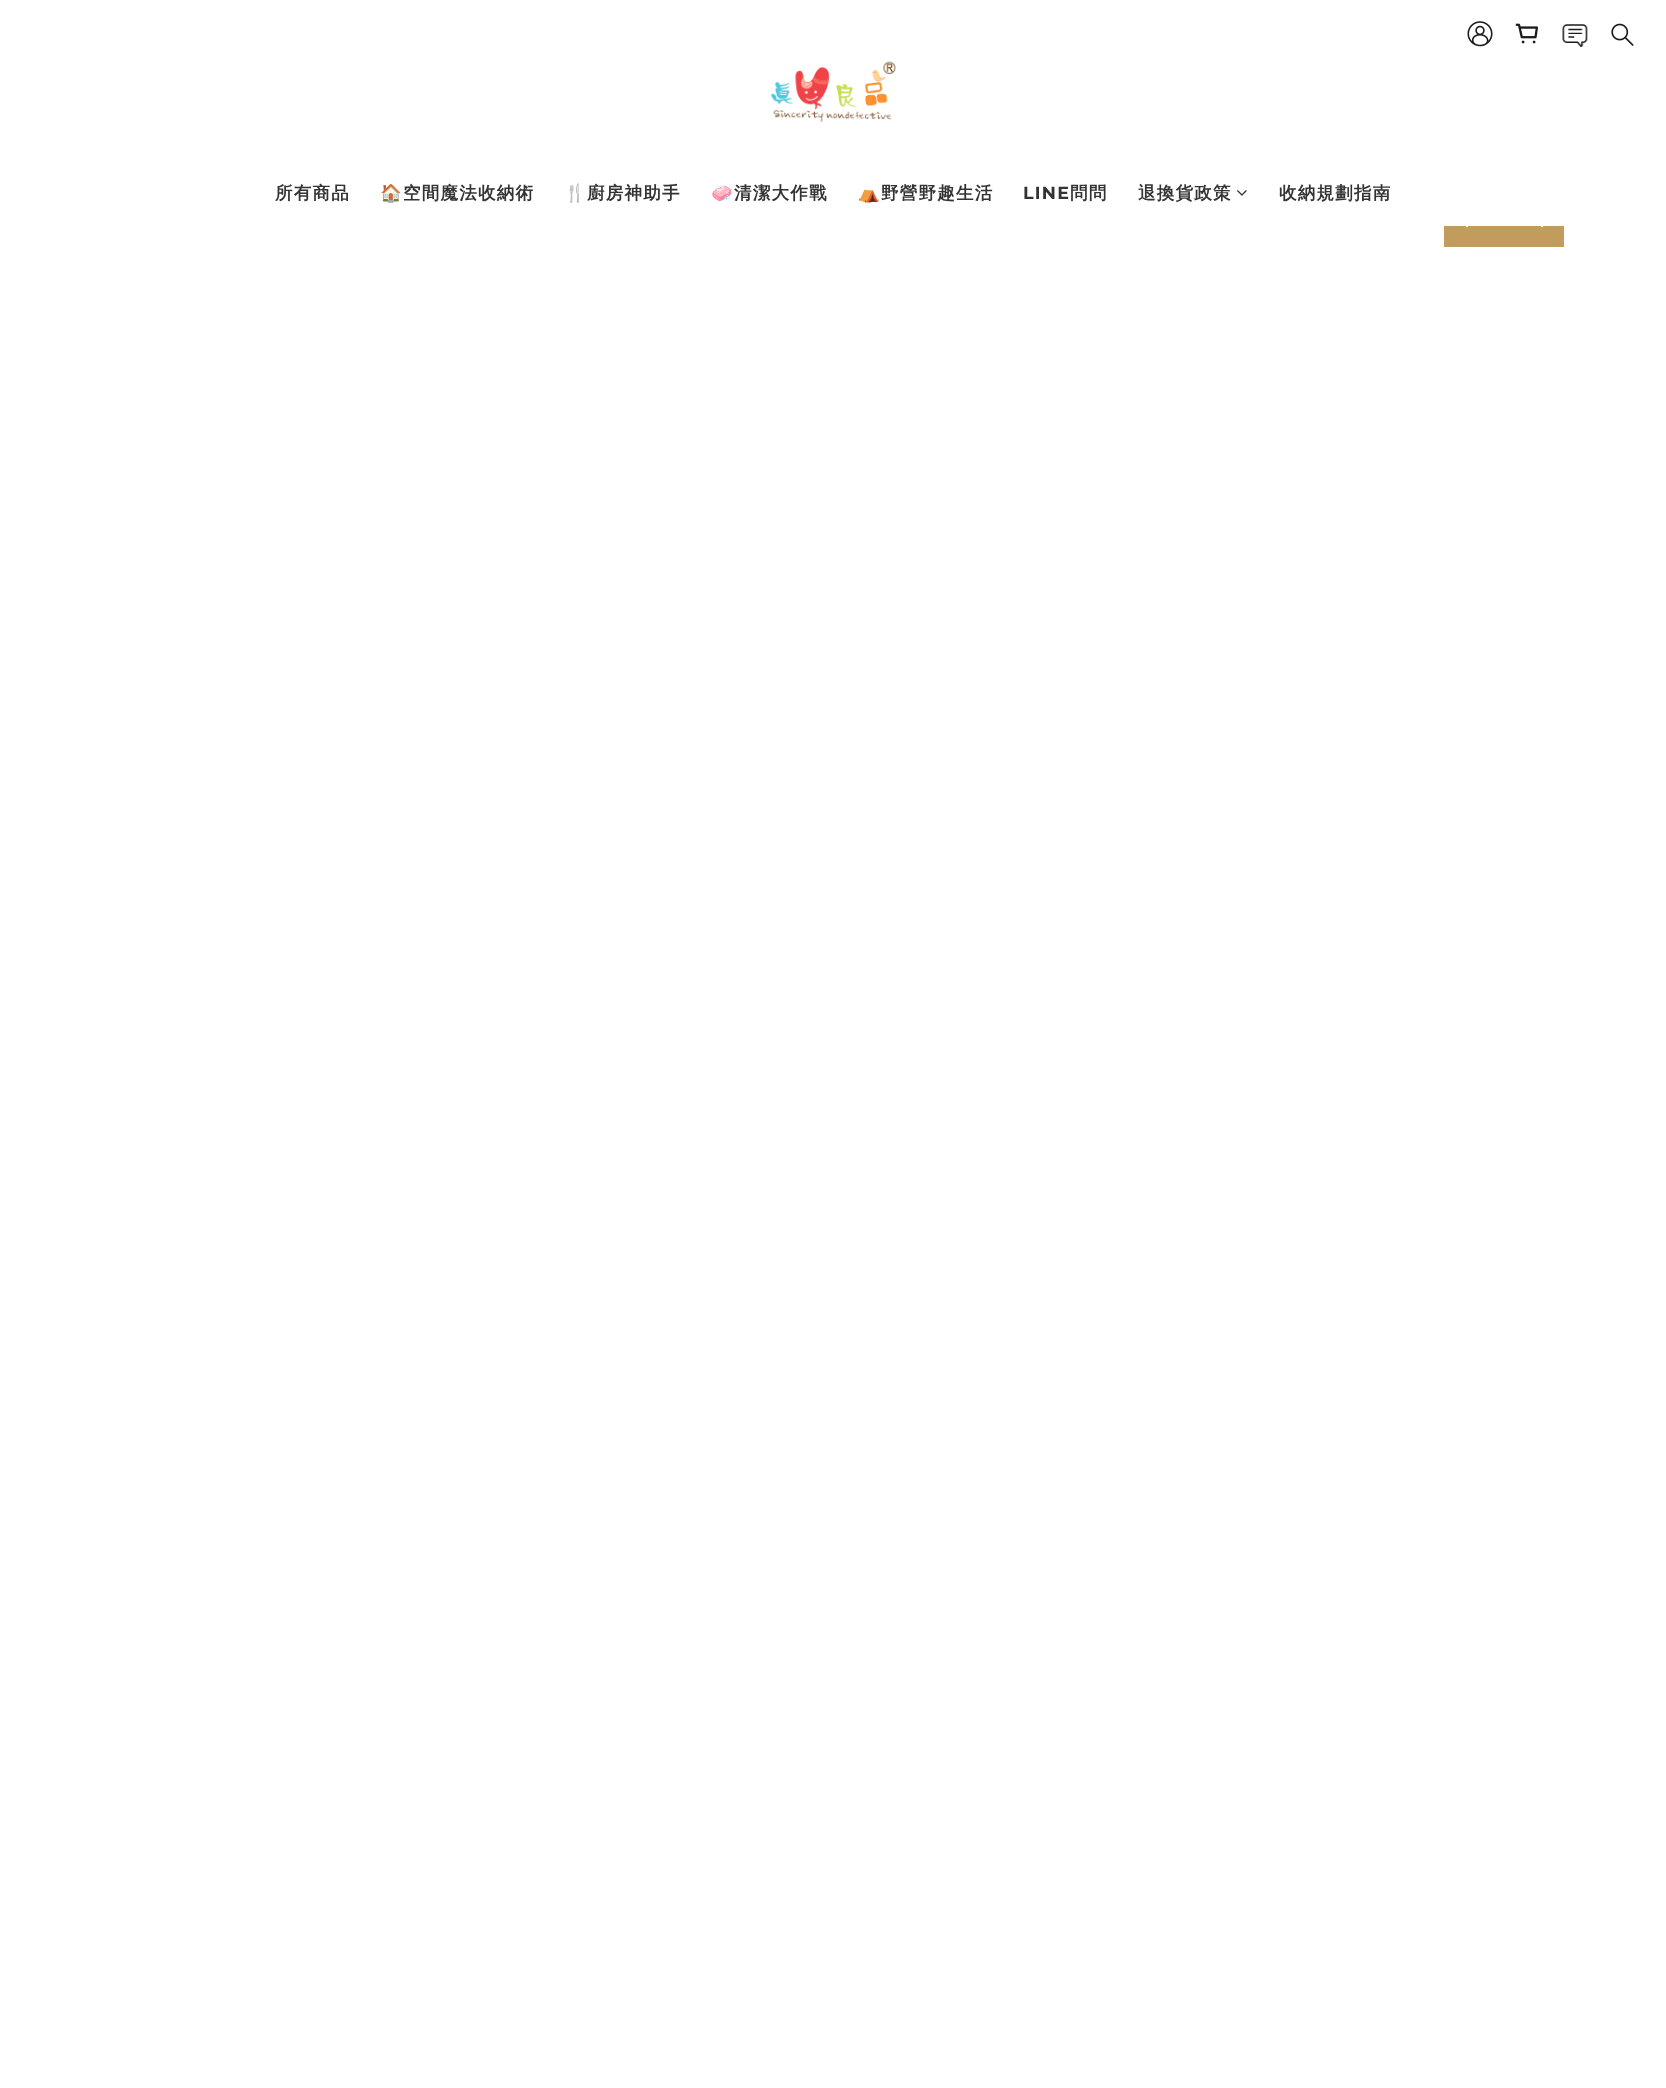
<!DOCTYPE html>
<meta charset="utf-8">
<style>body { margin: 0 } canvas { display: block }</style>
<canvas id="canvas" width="1666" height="2088"></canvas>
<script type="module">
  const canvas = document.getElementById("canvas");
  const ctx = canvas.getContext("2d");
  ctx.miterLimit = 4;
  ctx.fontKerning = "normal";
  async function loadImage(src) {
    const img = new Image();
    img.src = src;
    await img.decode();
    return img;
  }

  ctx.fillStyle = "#ffffff";
  ctx.fillRect(0, 0, 1666, 2088);
  ctx.drawImage(await loadImage("img1.png"), 1467, 21, 26, 26);
  ctx.drawImage(await loadImage("img2.png"), 1515, 23, 23, 21);
  ctx.drawImage(await loadImage("img3.png"), 1562, 24, 26, 23);
  ctx.drawImage(await loadImage("img4.png"), 1611, 23, 23, 23);
  ctx.drawImage(await loadImage("img5.png"), 771, 61, 125, 61);
  ctx.letterSpacing = "1.25px";
  ctx.font = "bold 17.5px WenQuanYi Zen Hei";
  ctx.fillStyle = "#333333";
  ctx.fillText("所有商品", 275, 199);
  ctx.font = "bold 17.5px Noto Color Emoji";
  ctx.fillText("🏠", 380, 199);
  ctx.font = "bold 17.5px WenQuanYi Zen Hei";
  ctx.fillText("空間魔法收納術", 403, 199);
  ctx.font = "bold 17.5px Noto Color Emoji";
  ctx.fillText("🍴", 564, 199);
  ctx.font = "bold 17.5px WenQuanYi Zen Hei";
  ctx.fillText("廚房神助手", 587, 199);
  ctx.font = "bold 17.5px Noto Color Emoji";
  ctx.fillText("🧼", 711, 199);
  ctx.font = "bold 17.5px WenQuanYi Zen Hei";
  ctx.fillText("清潔大作戰", 734, 199);
  ctx.font = "bold 17.5px Noto Color Emoji";
  ctx.fillText("⛺", 858, 199);
  ctx.font = "bold 17.5px WenQuanYi Zen Hei";
  ctx.fillText("野營野趣生活", 881, 199);
  ctx.font = "bold 17.5px Montserrat";
  ctx.fillText("LINE", 1023, 199);
  ctx.font = "bold 17.5px WenQuanYi Zen Hei";
  ctx.fillText("問問", 1070, 199);
  ctx.fillText("退換貨政策", 1138, 199);
  ctx.drawImage(await loadImage("img6.png"), 1237, 190, 10, 6);
  ctx.fillText("收納規劃指南", 1279, 199);
  ctx.fillStyle = "#c19c5c";
  ctx.fillRect(1444, 226, 120, 21);
  ctx.save();
  ctx.beginPath();
  ctx.rect(103, 226, 1462, 927);
  ctx.clip();
  ctx.fillStyle = "#ffffff";
  ctx.beginPath();
  ctx.moveTo(1456.5, 216.5);
  ctx.lineTo(1457, 216);
  ctx.lineTo(1468, 226.5);
  ctx.lineTo(1467, 227.5);
  ctx.closePath();
  ctx.fill();
  ctx.beginPath();
  ctx.moveTo(1552.5, 216.5);
  ctx.lineTo(1542, 227.5);
  ctx.lineTo(1541, 226.5);
  ctx.lineTo(1551.5, 216);
  ctx.closePath();
  ctx.fill();
  ctx.restore();
</script>
